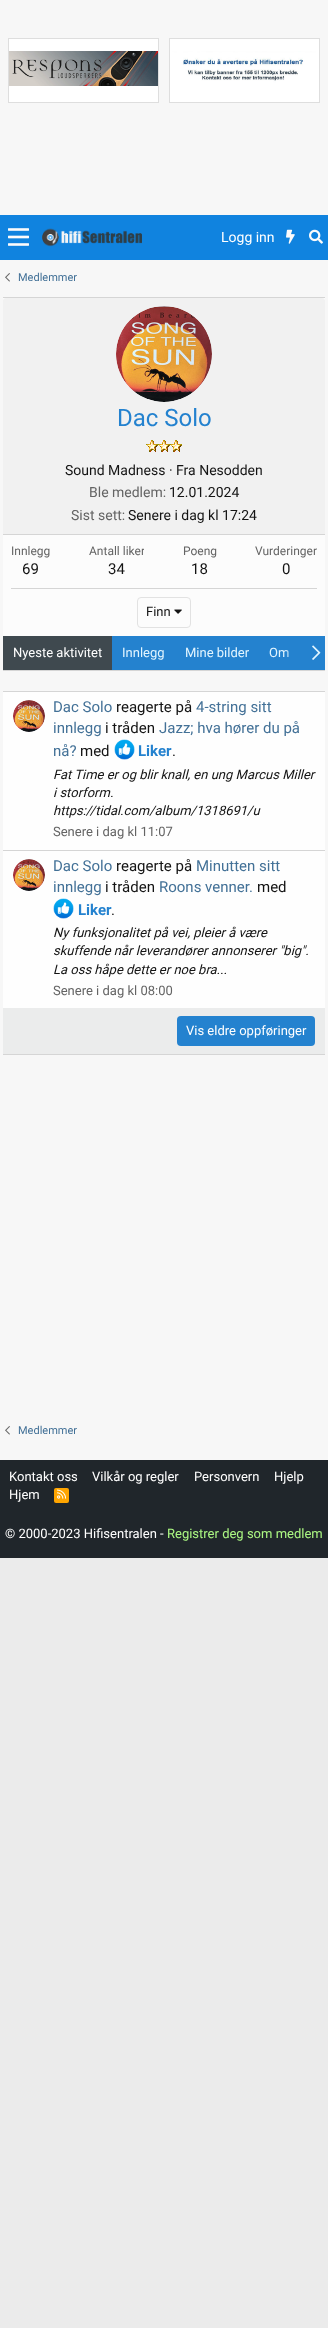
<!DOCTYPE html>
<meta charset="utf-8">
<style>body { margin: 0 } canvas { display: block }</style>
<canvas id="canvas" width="328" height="2328"></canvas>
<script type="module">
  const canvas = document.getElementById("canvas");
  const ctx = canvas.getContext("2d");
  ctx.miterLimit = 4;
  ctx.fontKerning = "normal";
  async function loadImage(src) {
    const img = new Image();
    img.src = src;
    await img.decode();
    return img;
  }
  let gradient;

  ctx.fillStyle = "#ebebeb";
  ctx.fillRect(0, 0, 328, 2328);
  ctx.fillStyle = "#f7f7f7";
  ctx.fillRect(0, 0, 328, 1460);
  ctx.drawImage(await loadImage("img1.png"), 8, 38, 312, 65);
  ctx.fillStyle = "#1083df";
  ctx.fillRect(0, 215, 328, 45);
  ctx.drawImage(await loadImage("img2.png"), 8, 228, 21, 18);
  ctx.drawImage(await loadImage("img3.png"), 42, 228, 100, 19);
  ctx.font = "14px Roboto";
  ctx.fillStyle = "#ffffff";
  ctx.fillText("Logg inn", 221, 242);
  ctx.drawImage(await loadImage("img4.png"), 286, 229, 9, 15);
  ctx.drawImage(await loadImage("img5.png"), 309, 229, 14, 15);
  ctx.drawImage(await loadImage("img6.png"), 5, 273, 5, 9);
  ctx.font = "11px Roboto";
  ctx.fillStyle = "#437197";
  ctx.fillText("Medlemmer", 18, 281);
  ctx.fillStyle = "#fcfcfc";
  ctx.fillRect(3, 298, 322, 338);
  ctx.fillStyle = "#d5d5d5";
  ctx.fillRect(3, 297, 322, 1);
  ctx.fillRect(3, 670, 322, 1);
  ctx.fillStyle = "#f1f1f1";
  ctx.beginPath();
  ctx.roundRect(3, 298, 322, 237, [3, 3, 0, 0]);
  ctx.fill();
  ctx.fillStyle = "#d5d5d5";
  ctx.fillRect(3, 534, 322, 1);
  ctx.drawImage(await loadImage("img7.png"), 116, 306, 96, 96);
  ctx.font = "24px Roboto";
  ctx.fillStyle = "#2482cf";
  ctx.fillText("Dac Solo", 117, 426);
  ctx.drawImage(await loadImage("img8.png"), 146, 440, 12, 12);
  ctx.drawImage(await loadImage("img8.png"), 158, 440, 12, 12);
  ctx.drawImage(await loadImage("img8.png"), 170, 440, 12, 12);
  ctx.font = "14px Roboto";
  ctx.fillStyle = "#141414";
  ctx.fillText("Sound Madness · Fra Nesodden", 65, 475);
  ctx.fillStyle = "#646464";
  ctx.fillText("Ble medlem:", 89, 497);
  ctx.fillStyle = "#141414";
  ctx.fillText("12.01.2024", 169, 497);
  ctx.fillStyle = "#646464";
  ctx.fillText("Sist sett:", 71, 520);
  ctx.fillStyle = "#141414";
  ctx.fillText("Senere i dag kl 17:24", 128, 520);
  ctx.font = "12px Roboto";
  ctx.fillStyle = "#646464";
  ctx.fillText("Innlegg", 11, 555);
  ctx.font = "15px Roboto";
  ctx.fillStyle = "#141414";
  ctx.fillText("69", 22, 574);
  ctx.save();
  ctx.beginPath();
  ctx.rect(89, 543, 55, 37);
  ctx.clip();
  ctx.font = "12px Roboto";
  ctx.fillStyle = "#646464";
  ctx.fillText("Antall liker", 89, 555);
  ctx.restore();
  ctx.fillText("34", 108, 574);
  ctx.font = "12px Roboto";
  ctx.fillStyle = "#646464";
  ctx.fillText("Poeng", 183, 555);
  ctx.font = "15px Roboto";
  ctx.fillStyle = "#141414";
  ctx.fillText("18", 191, 574);
  ctx.font = "12px Roboto";
  ctx.fillStyle = "#646464";
  ctx.fillText("Vurderinger", 255, 555);
  ctx.font = "15px Roboto";
  ctx.fillStyle = "#141414";
  ctx.fillText("0", 282, 574);
  ctx.fillStyle = "#d5d5d5";
  ctx.fillRect(11, 588, 306, 1);
  ctx.beginPath();
  ctx.roundRect(137.5, 597.5, 53, 30, 3.5);
  ctx.strokeStyle = "#e2e2e2";
  ctx.stroke();
  ctx.font = "13px Roboto";
  ctx.fillStyle = "#141414";
  ctx.fillText("Finn", 146, 616);
  ctx.drawImage(await loadImage("img9.png"), 174, 609, 8, 5);
  ctx.fillStyle = "#2482cf";
  ctx.fillRect(112, 636, 186, 34);
  ctx.fillStyle = "#3f494f";
  ctx.fillRect(3, 636, 109, 34);
  ctx.fillStyle = "#ffffff";
  ctx.fillText("Nyeste aktivitet", 13, 657);
  ctx.fillStyle = "#e2f5ff";
  ctx.fillText("Innlegg", 122, 657);
  ctx.fillText("Mine bilder", 185, 657);
  ctx.fillText("Om", 269, 657);
  gradient = ctx.createLinearGradient(285, 653, 325, 653);
  gradient.addColorStop(0, "rgba(36, 130, 207, 0)");
  gradient.addColorStop(0.33, "#2482cf");
  ctx.fillStyle = gradient;
  ctx.fillRect(285, 636, 40, 34);
  ctx.drawImage(await loadImage("img10.png"), 312, 645, 9, 15);
  ctx.fillStyle = "#d5d5d5";
  ctx.fillRect(3, 691, 322, 1);
  ctx.fillRect(3, 1054, 322, 1);
  ctx.fillStyle = "#fefefe";
  ctx.fillRect(3, 692, 322, 158);
  ctx.drawImage(await loadImage("img11.png"), 13, 700, 32, 32);
  ctx.font = "15px Roboto";
  ctx.fillStyle = "#437197";
  ctx.fillText("Dac Solo", 53, 712);
  ctx.fillStyle = "#141414";
  ctx.fillText("reagerte på", 116, 712);
  ctx.fillStyle = "#437197";
  ctx.fillText("4-string sitt", 196, 712);
  ctx.fillText("innlegg", 53, 733);
  ctx.fillStyle = "#141414";
  ctx.fillText("i tråden", 105, 733);
  ctx.fillStyle = "#437197";
  ctx.fillText("Jazz; hva hører du på", 159, 733);
  ctx.fillText("nå?", 53, 756);
  ctx.fillStyle = "#141414";
  ctx.fillText("med", 80, 756);
  ctx.drawImage(await loadImage("img12.png"), 114, 739, 21, 21);
  ctx.font = "bold 15px Roboto";
  ctx.fillStyle = "#2482cf";
  ctx.fillText("Liker", 138, 756);
  ctx.font = "15px Roboto";
  ctx.fillStyle = "#141414";
  ctx.fillText(".", 172, 756);
  ctx.font = "italic 13px Roboto";
  ctx.fillText("Fat Time er og blir knall, en ung Marcus Miller", 53, 779);
  ctx.fillText("i storform.", 53, 797);
  ctx.fillText("https://tidal.com/album/1318691/u", 53, 815);
  ctx.font = "13px Roboto";
  ctx.fillStyle = "#646464";
  ctx.fillText("Senere i dag kl 11:07", 53, 836);
  ctx.fillStyle = "#fefefe";
  ctx.fillRect(3, 851, 322, 157);
  ctx.fillStyle = "#d5d5d5";
  ctx.fillRect(3, 850, 322, 1);
  ctx.drawImage(await loadImage("img11.png"), 13, 859, 32, 32);
  ctx.font = "15px Roboto";
  ctx.fillStyle = "#437197";
  ctx.fillText("Dac Solo", 53, 871);
  ctx.fillStyle = "#141414";
  ctx.fillText("reagerte på", 116, 871);
  ctx.fillStyle = "#437197";
  ctx.fillText("Minutten sitt", 196, 871);
  ctx.fillText("innlegg", 53, 892);
  ctx.fillStyle = "#141414";
  ctx.fillText("i tråden", 105, 892);
  ctx.fillStyle = "#437197";
  ctx.fillText("Roons venner.", 159, 892);
  ctx.fillStyle = "#141414";
  ctx.fillText("med", 257, 892);
  ctx.drawImage(await loadImage("img12.png"), 53, 898, 21, 21);
  ctx.font = "bold 15px Roboto";
  ctx.fillStyle = "#2482cf";
  ctx.fillText("Liker", 78, 915);
  ctx.font = "15px Roboto";
  ctx.fillStyle = "#141414";
  ctx.fillText(".", 111, 915);
  ctx.font = "italic 13px Roboto";
  ctx.fillText("Ny funksjonalitet på vei, pleier å være", 53, 937);
  ctx.fillText("skuffende når leverandører annonserer \"big\".", 53, 955);
  ctx.fillText("La oss håpe dette er noe bra...", 53, 974);
  ctx.font = "13px Roboto";
  ctx.fillStyle = "#646464";
  ctx.fillText("Senere i dag kl 08:00", 53, 995);
  ctx.fillStyle = "#ebecec";
  ctx.fillRect(3, 1008, 322, 46);
  ctx.fillStyle = "#2482cf";
  ctx.beginPath();
  ctx.roundRect(177, 1016, 138, 30, 4);
  ctx.fill();
  ctx.fillStyle = "#ffffff";
  ctx.fillText("Vis eldre oppføringer", 186, 1035);
  ctx.drawImage(await loadImage("img6.png"), 5, 1426, 5, 9);
  ctx.font = "11px Roboto";
  ctx.fillStyle = "#437197";
  ctx.fillText("Medlemmer", 18, 1434);
  ctx.fillStyle = "#20262b";
  ctx.fillRect(0, 1460, 328, 98);
  ctx.font = "13px Roboto";
  ctx.fillStyle = "#ffffff";
  ctx.fillText("Kontakt oss", 9, 1481);
  ctx.fillText("Vilkår og regler", 92, 1481);
  ctx.fillText("Personvern", 194, 1481);
  ctx.fillText("Hjelp", 274, 1481);
  ctx.fillText("Hjem", 9, 1499);
  ctx.fillStyle = "#ffa500";
  ctx.beginPath();
  ctx.roundRect(54, 1488, 15, 15, 2);
  ctx.fill();
  ctx.drawImage(await loadImage("img13.png"), 57, 1489, 10, 10);
  ctx.fillStyle = "#ffffff";
  ctx.fillText("© 2000-2023 Hifisentralen -", 5, 1538);
  ctx.fillStyle = "#acf883";
  ctx.fillText("Registrer deg som medlem", 167, 1538);
</script>
